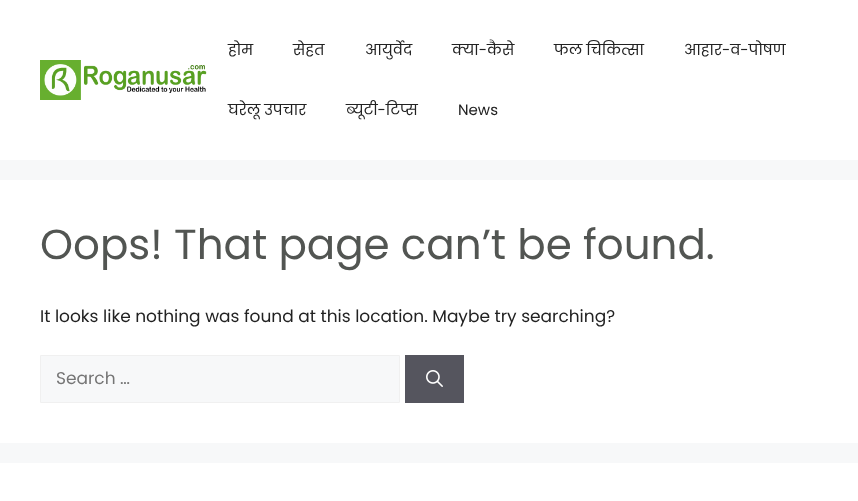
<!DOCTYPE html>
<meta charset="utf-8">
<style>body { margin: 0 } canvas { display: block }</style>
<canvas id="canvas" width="858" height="501"></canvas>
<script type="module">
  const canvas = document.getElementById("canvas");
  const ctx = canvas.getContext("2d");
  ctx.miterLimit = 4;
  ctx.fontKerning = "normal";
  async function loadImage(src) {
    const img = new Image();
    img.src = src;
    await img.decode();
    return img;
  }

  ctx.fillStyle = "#f7f8f9";
  ctx.fillRect(0, 0, 858, 501);
  ctx.fillStyle = "#ffffff";
  ctx.fillRect(0, 0, 858, 160);
  ctx.drawImage(await loadImage("img1.png"), 40, 60, 167, 40);
  ctx.font = "15px Poppins";
  ctx.fillStyle = "#222222";
  ctx.fillText("होम", 228, 55);
  ctx.fillText("सेहत", 293, 55);
  ctx.fillText("आयुर्वेद", 365, 55);
  ctx.fillText("क्या-कैसे", 452, 55);
  ctx.fillText("फल चिकित्सा", 554, 55);
  ctx.fillText("आहार-व-पोषण", 684, 55);
  ctx.fillText("घरेलू उपचार", 228, 115);
  ctx.fillText("ब्यूटी-टिप्स", 346, 115);
  ctx.fillText("News", 458, 115);
  ctx.fillStyle = "#ffffff";
  ctx.fillRect(0, 180, 858, 263);
  ctx.font = "42px Poppins";
  ctx.fillStyle = "#525552";
  ctx.fillText("Oops! That page can’t be found.", 40, 259);
  ctx.font = "17px Poppins";
  ctx.fillStyle = "#222222";
  ctx.fillText("It looks like nothing was found at this location. Maybe try searching?", 40, 322);
  ctx.fillStyle = "#f7f8f9";
  ctx.beginPath();
  ctx.rect(40.5, 355.5, 359, 47);
  ctx.fill();
  ctx.strokeStyle = "#f0f0f0";
  ctx.stroke();
  ctx.fillStyle = "#757575";
  ctx.fillText("Search …", 56, 384);
  ctx.fillStyle = "#55555e";
  ctx.fillRect(405, 355, 59, 48);
  ctx.drawImage(await loadImage("img2.png"), 426, 370, 17, 17);
  ctx.fillStyle = "#ffffff";
  ctx.fillRect(0, 463, 858, 38);
</script>
